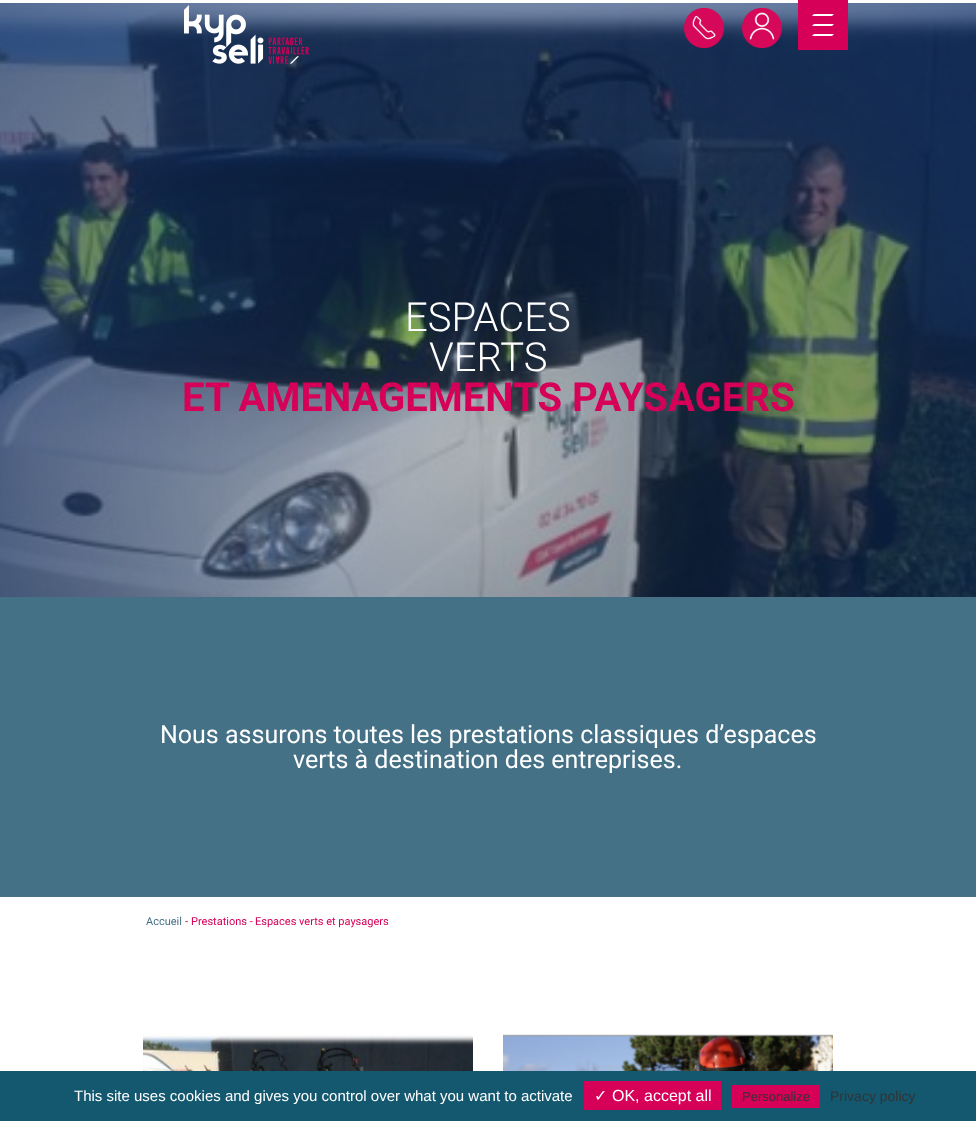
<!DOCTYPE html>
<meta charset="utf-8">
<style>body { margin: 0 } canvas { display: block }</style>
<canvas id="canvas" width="976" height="1121"></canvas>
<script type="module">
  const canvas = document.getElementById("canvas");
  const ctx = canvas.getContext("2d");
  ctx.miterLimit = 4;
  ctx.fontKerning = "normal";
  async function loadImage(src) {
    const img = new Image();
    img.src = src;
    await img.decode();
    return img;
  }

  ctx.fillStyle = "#ffffff";
  ctx.fillRect(0, 0, 976, 1121);
  ctx.drawImage(await loadImage("img4.png"), 0, 3, 976, 594);
  ctx.drawImage(await loadImage("img1.png"), 184, 5, 125, 59);
  ctx.drawImage(await loadImage("img2.png"), 684, 8, 40, 40);
  ctx.drawImage(await loadImage("img3.png"), 742, 8, 40, 40);
  ctx.fillStyle = "#d60058";
  ctx.fillRect(798, 0, 50, 50);
  ctx.fillStyle = "#ffffff";
  ctx.beginPath();
  ctx.moveTo(814, 14);
  ctx.lineTo(812, 16);
  ctx.lineTo(832, 16);
  ctx.lineTo(834, 14);
  ctx.closePath();
  ctx.moveTo(814, 24);
  ctx.lineTo(812, 26);
  ctx.lineTo(832, 26);
  ctx.lineTo(834, 24);
  ctx.closePath();
  ctx.moveTo(814, 34);
  ctx.lineTo(812, 36);
  ctx.lineTo(832, 36);
  ctx.lineTo(834, 34);
  ctx.closePath();
  ctx.fill();
  ctx.font = "300 40px Roboto";
  ctx.fillText("ESPACES", 405, 331);
  ctx.fillText("VERTS", 429, 371);
  ctx.font = "bold 40px Roboto";
  ctx.fillStyle = "#d60058";
  ctx.fillText("ET AMENAGEMENTS PAYSAGERS", 182, 411);
  ctx.fillStyle = "#457186";
  ctx.fillRect(0, 597, 976, 300);
  ctx.font = "25px Roboto";
  ctx.fillStyle = "#ffffff";
  ctx.fillText("Nous assurons toutes les prestations classiques d’espaces", 160, 743);
  ctx.fillText("verts à destination des entreprises.", 293, 768);
  ctx.font = "11px Roboto";
  ctx.fillStyle = "#457186";
  ctx.fillText("Accueil", 146, 925);
  ctx.fillStyle = "#d60058";
  ctx.fillText("-", 185, 925);
  ctx.fillText("Prestations -", 191, 925);
  ctx.fillText("Espaces verts et paysagers", 255, 925);
  ctx.drawImage(await loadImage("img5.png"), 143, 1034, 330, 37);
  ctx.drawImage(await loadImage("img6.png"), 503, 1034, 330, 37);
  ctx.fillStyle = "#14586f";
  ctx.fillRect(0, 1071, 976, 50);
  ctx.font = "15px Liberation Sans";
  ctx.fillStyle = "#ffffff";
  ctx.fillText("This site uses cookies and gives you control over what you want to activate", 74, 1101);
  ctx.fillStyle = "#d60058";
  ctx.fillRect(584, 1081, 137, 29);
  ctx.font = "16px DejaVu Sans";
  ctx.fillStyle = "#ffffff";
  ctx.fillText("✓", 594, 1101);
  ctx.font = "16px Liberation Sans";
  ctx.fillText("OK, accept all", 612, 1101);
  ctx.fillStyle = "#d60058";
  ctx.fillRect(732, 1085, 88, 23);
  ctx.font = "13px Liberation Sans";
  ctx.fillStyle = "#333333";
  ctx.fillText("Personalize", 742, 1101);
  ctx.font = "14px Liberation Sans";
  ctx.fillText("Privacy policy", 830, 1101);
</script>
